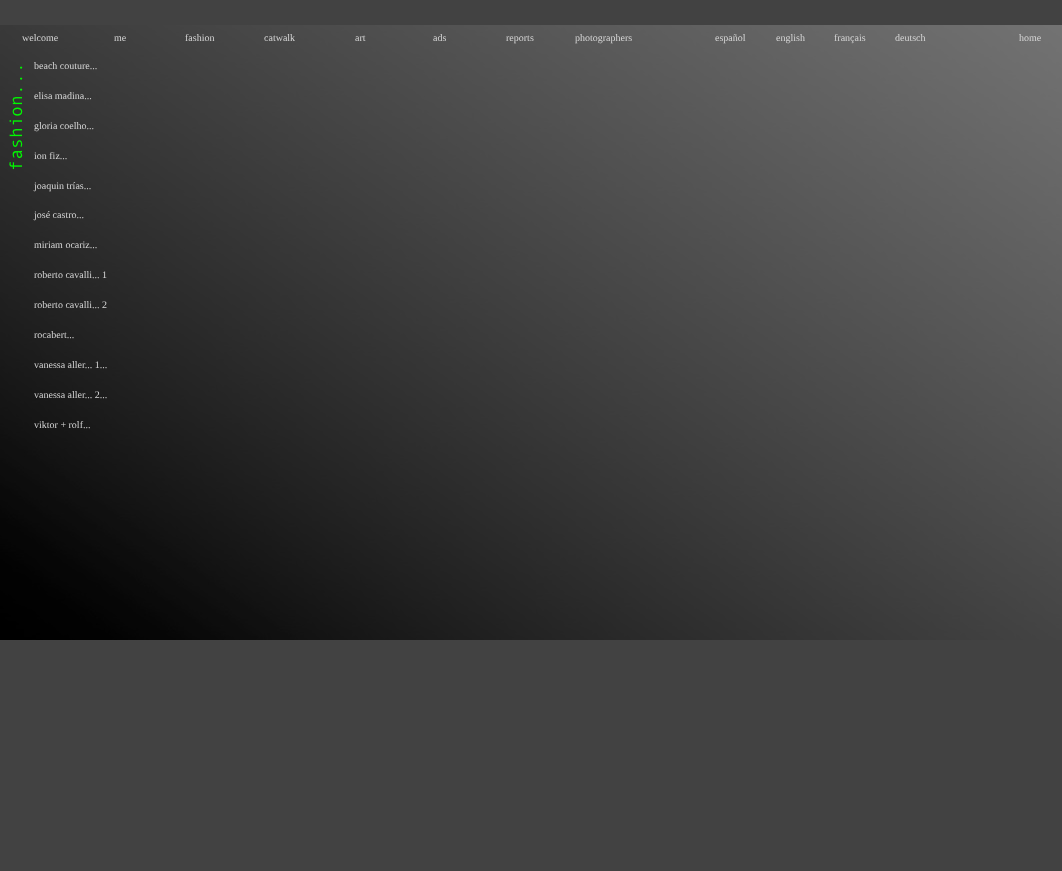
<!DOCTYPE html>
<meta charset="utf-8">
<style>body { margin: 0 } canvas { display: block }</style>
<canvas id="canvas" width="1062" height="871"></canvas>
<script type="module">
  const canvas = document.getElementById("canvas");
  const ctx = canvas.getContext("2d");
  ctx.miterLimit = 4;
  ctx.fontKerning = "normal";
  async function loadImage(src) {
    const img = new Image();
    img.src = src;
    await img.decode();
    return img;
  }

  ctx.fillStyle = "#424242";
  ctx.fillRect(0, 0, 1062, 871);
  ctx.drawImage(await loadImage("img1.png"), 0, 25, 1062, 615);
  ctx.font = "10px Liberation Serif";
  ctx.fillStyle = "#d6d6d6";
  ctx.fillText("welcome", 22, 41);
  ctx.fillText("me", 114, 41);
  ctx.fillText("fashion", 185, 41);
  ctx.fillText("catwalk", 264, 41);
  ctx.fillText("art", 355, 41);
  ctx.fillText("ads", 433, 41);
  ctx.fillText("reports", 506, 41);
  ctx.fillText("photographers", 575, 41);
  ctx.fillText("español", 715, 41);
  ctx.fillText("english", 776, 41);
  ctx.fillText("français", 834, 41);
  ctx.fillText("deutsch", 895, 41);
  ctx.fillText("home", 1019, 41);
  ctx.drawImage(await loadImage("img2.png"), 9, 66, 14, 104);
  ctx.fillText("beach couture...", 34, 69);
  ctx.fillText("elisa madina...", 34, 99);
  ctx.fillText("gloria coelho...", 34, 129);
  ctx.fillText("ion fiz...", 34, 159);
  ctx.fillText("joaquin trías...", 34, 189);
  ctx.fillText("josé castro...", 34, 218);
  ctx.fillText("miriam ocariz...", 34, 248);
  ctx.fillText("roberto cavalli... 1", 34, 278);
  ctx.fillText("roberto cavalli... 2", 34, 308);
  ctx.fillText("rocabert...", 34, 338);
  ctx.fillText("vanessa aller... 1...", 34, 368);
  ctx.fillText("vanessa aller... 2...", 34, 398);
  ctx.fillText("viktor + rolf...", 34, 428);
</script>
